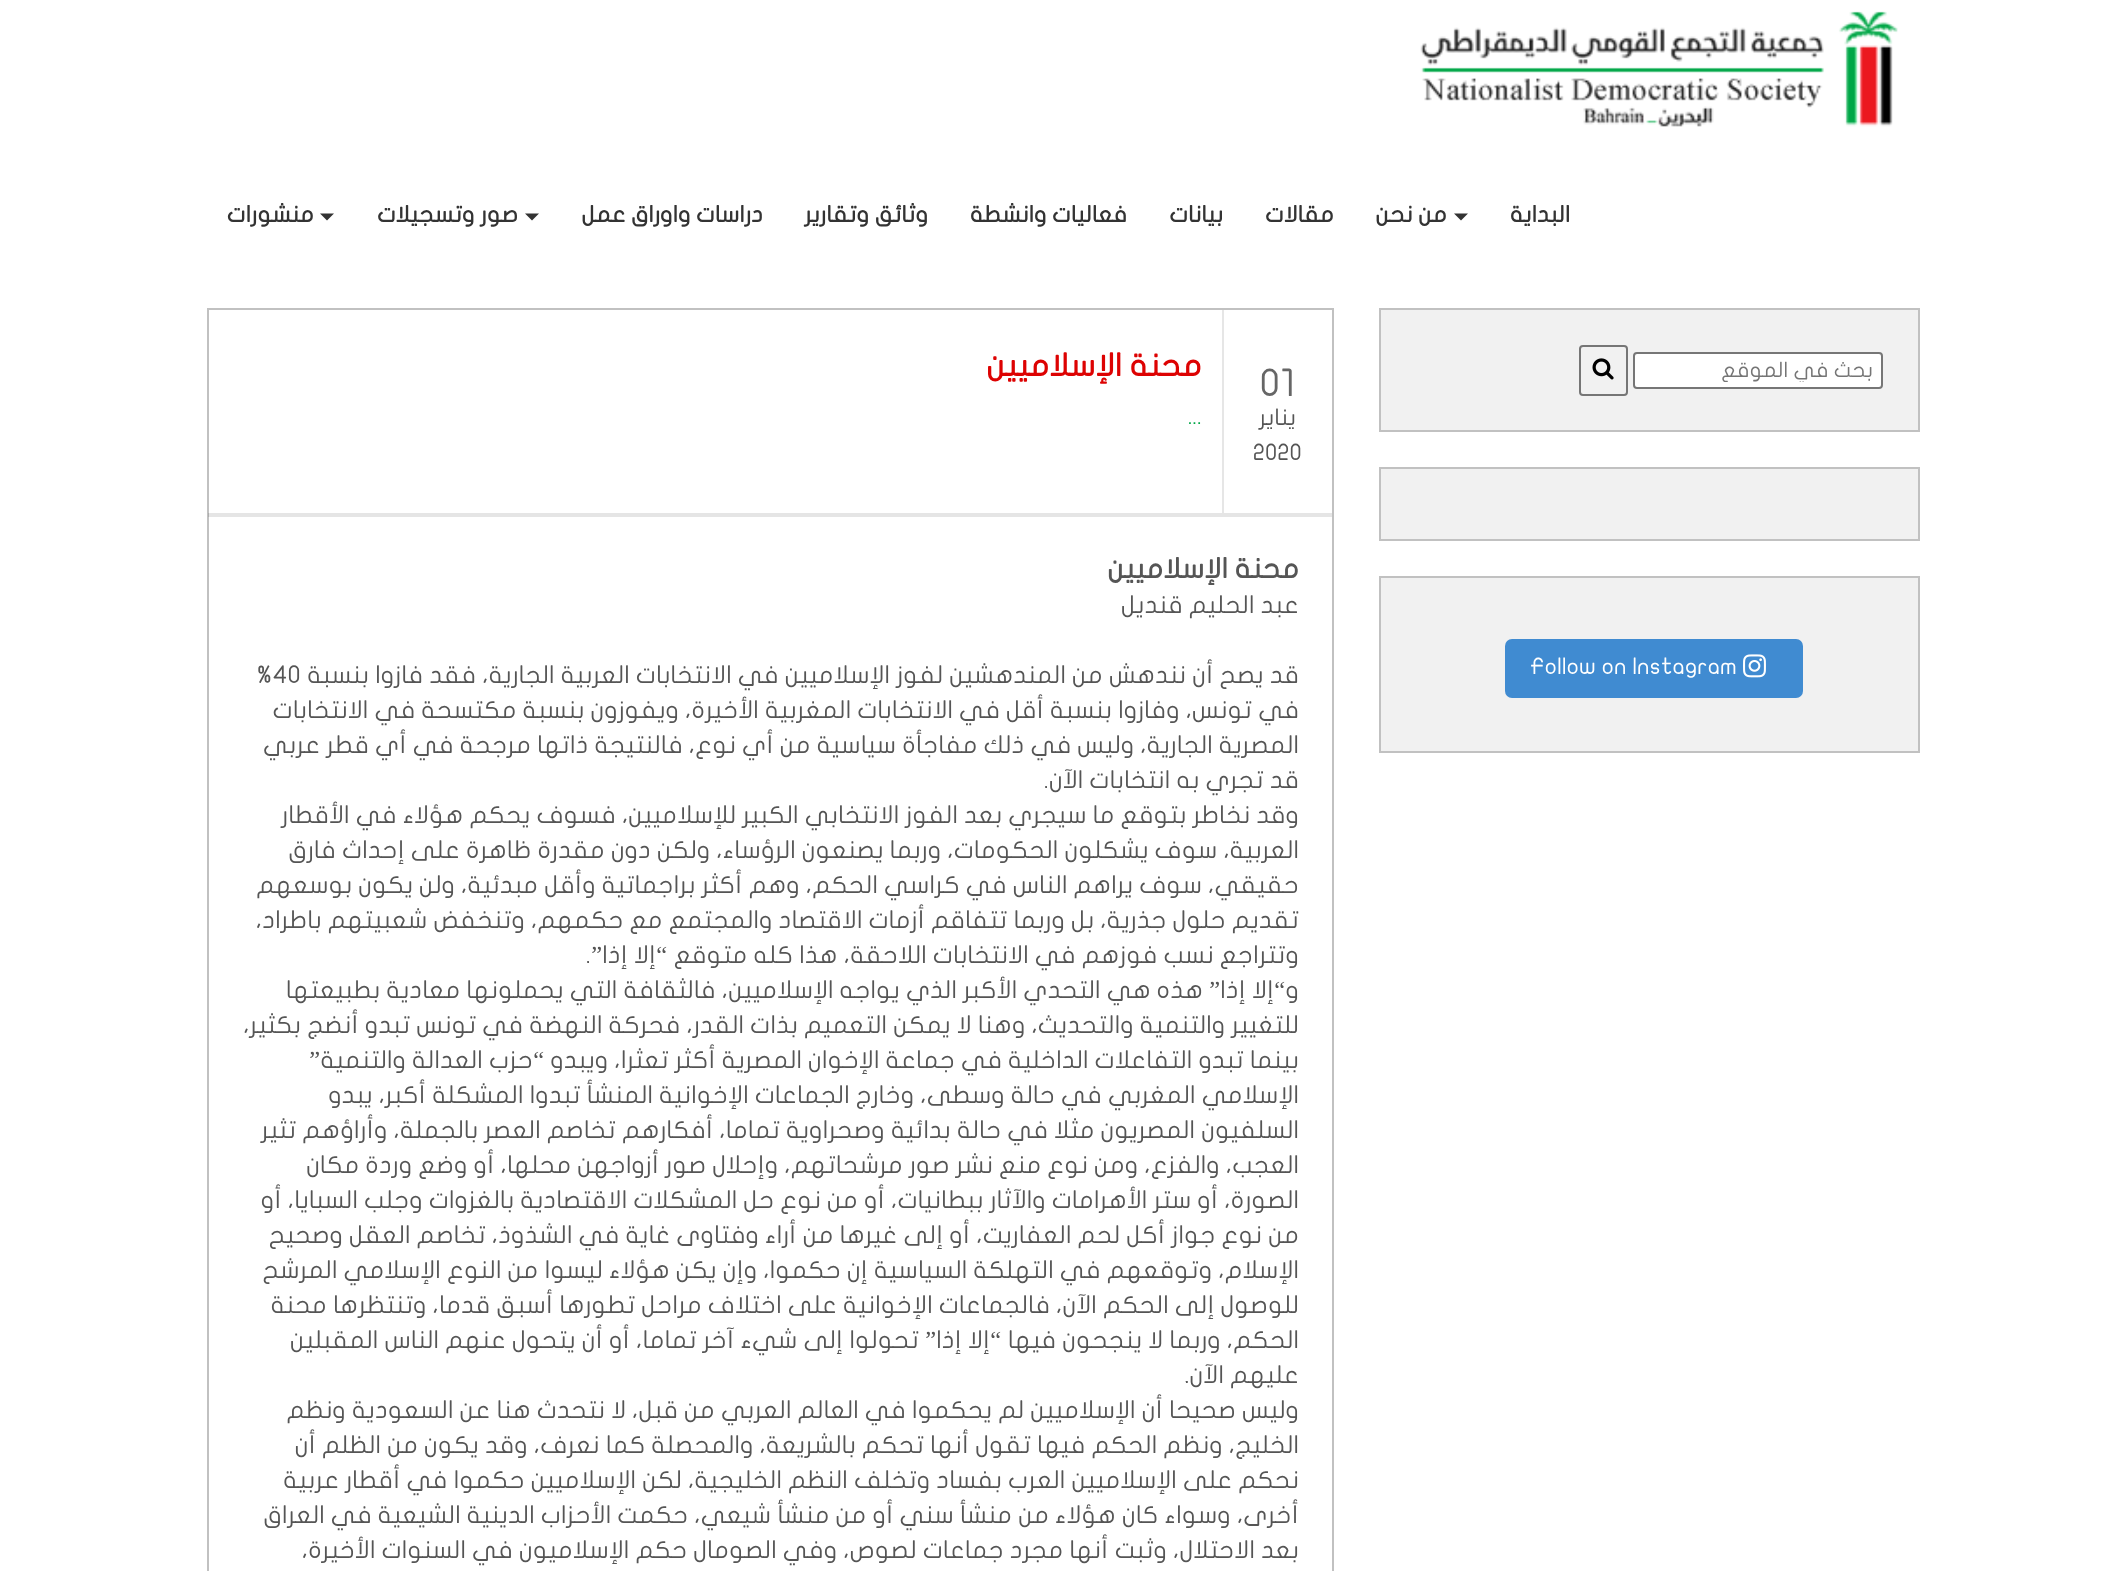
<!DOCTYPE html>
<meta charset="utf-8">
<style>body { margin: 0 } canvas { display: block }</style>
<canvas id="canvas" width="2126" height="1571"></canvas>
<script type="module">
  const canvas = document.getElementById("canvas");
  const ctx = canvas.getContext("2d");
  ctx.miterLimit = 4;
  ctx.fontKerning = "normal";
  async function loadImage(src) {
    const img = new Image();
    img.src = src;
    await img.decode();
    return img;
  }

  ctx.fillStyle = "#ffffff";
  ctx.fillRect(0, 0, 2126, 1571);
  ctx.drawImage(await loadImage("img1.png"), 1420, 11, 478, 116);
  ctx.direction = "rtl";
  ctx.font = "bold 22.75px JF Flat";
  ctx.fillStyle = "#333333";
  ctx.fillText("البداية", 1570, 222);
  ctx.beginPath();
  ctx.moveTo(1454, 213.5);
  ctx.lineTo(1468, 213.5);
  ctx.lineTo(1461, 220.5);
  ctx.closePath();
  ctx.fill();
  ctx.fillText("من نحن", 1447, 222);
  ctx.fillText("مقالات", 1334, 222);
  ctx.fillText("بيانات", 1223, 222);
  ctx.fillText("فعاليات وانشطة", 1127, 222);
  ctx.fillText("وثائق وتقارير", 928, 222);
  ctx.fillText("دراسات واوراق عمل", 763, 222);
  ctx.beginPath();
  ctx.moveTo(525, 213.5);
  ctx.lineTo(539, 213.5);
  ctx.lineTo(532, 220.5);
  ctx.closePath();
  ctx.fill();
  ctx.fillText("صور وتسجيلات", 518, 222);
  ctx.beginPath();
  ctx.moveTo(320, 213.5);
  ctx.lineTo(334, 213.5);
  ctx.lineTo(327, 220.5);
  ctx.closePath();
  ctx.fill();
  ctx.fillText("منشورات", 314, 222);
  ctx.fillStyle = "#f1f1f1";
  ctx.beginPath();
  ctx.rect(1380, 309, 539, 122);
  ctx.fill();
  ctx.strokeStyle = "#c1c1c1";
  ctx.lineWidth = 2;
  ctx.stroke();
  ctx.fillStyle = "#ffffff";
  ctx.beginPath();
  ctx.roundRect(1634, 353, 248, 35, 3);
  ctx.fill();
  ctx.strokeStyle = "#767676";
  ctx.stroke();
  ctx.save();
  ctx.beginPath();
  ctx.rect(1636, 359, 237, 23);
  ctx.clip();
  ctx.font = "21px JF Flat";
  ctx.fillStyle = "#757575";
  ctx.fillText("بحث في الموقع", 1873, 377);
  ctx.restore();
  ctx.beginPath();
  ctx.roundRect(1580, 346, 47, 49, 3);
  ctx.stroke();
  ctx.drawImage(await loadImage("img2.png"), 1592, 358, 22, 22);
  ctx.fillStyle = "#f1f1f1";
  ctx.beginPath();
  ctx.rect(1380, 468, 539, 72);
  ctx.fill();
  ctx.strokeStyle = "#c1c1c1";
  ctx.stroke();
  ctx.beginPath();
  ctx.rect(1380, 577, 539, 175);
  ctx.fill();
  ctx.stroke();
  ctx.fillStyle = "#408bd1";
  ctx.beginPath();
  ctx.roundRect(1505, 639, 298, 59, 7);
  ctx.fill();
  ctx.drawImage(await loadImage("img3.png"), 1743, 654, 23, 24);
  ctx.direction = "ltr";
  ctx.font = "22.75px JF Flat";
  ctx.fillStyle = "#ffffff";
  ctx.fillText("Follow on Instagram", 1530, 674);
  ctx.strokeRect(208, 309, 1125, 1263);
  ctx.fillStyle = "rgba(0, 0, 0, 0.1)";
  ctx.fillRect(208, 513, 1124, 2);
  ctx.font = "38px JF Flat";
  ctx.fillStyle = "#666666";
  ctx.fillText("01", 1260, 396);
  ctx.direction = "rtl";
  ctx.font = "22.75px JF Flat";
  ctx.fillStyle = "#555555";
  ctx.fillText("يناير", 1296, 425);
  ctx.direction = "ltr";
  ctx.fillText("2020", 1253, 460);
  ctx.fillStyle = "#e6e6e6";
  ctx.fillRect(1222, 310, 2, 203);
  ctx.direction = "rtl";
  ctx.font = "bold 31.5px JF Flat";
  ctx.fillStyle = "#dd0202";
  ctx.fillText("محنة الإسلاميين", 1202, 376);
  ctx.direction = "ltr";
  ctx.font = "22.75px JF Flat";
  ctx.fillStyle = "#00a747";
  ctx.fillText("...", 1188, 424);
  ctx.fillStyle = "rgba(0, 0, 0, 0.1)";
  ctx.fillRect(208, 515, 1124, 2);
  ctx.direction = "rtl";
  ctx.font = "bold 28px JF Flat";
  ctx.fillStyle = "#555555";
  ctx.fillText("محنة الإسلاميين", 1299, 578);
  ctx.font = "24.5px JF Flat";
  ctx.fillText("عبد الحليم قنديل", 1299, 613);
  ctx.fillText("قد يصح أن نندهش من المندهشين لفوز الإسلاميين في الانتخابات العربية الجارية، فقد فازوا بنسبة", 1299, 683);
  ctx.direction = "ltr";
  ctx.fillText("%40", 257, 683);
  ctx.direction = "rtl";
  ctx.fillText("في تونس، وفازوا بنسبة أقل في الانتخابات المغربية الأخيرة، ويفوزون بنسبة مكتسحة في الانتخابات", 1299, 718);
  ctx.fillText("المصرية الجارية، وليس في ذلك مفاجأة سياسية من أي نوع، فالنتيجة ذاتها مرجحة في أي قطر عربي", 1299, 753);
  ctx.fillText("قد تجري به انتخابات الآن.", 1299, 788);
  ctx.fillText("وقد نخاطر بتوقع ما سيجري بعد الفوز الانتخابي الكبير للإسلاميين، فسوف يحكم هؤلاء في الأقطار", 1299, 823);
  ctx.fillText("العربية، سوف يشكلون الحكومات، وربما يصنعون الرؤساء، ولكن دون مقدرة ظاهرة على إحداث فارق", 1299, 858);
  ctx.fillText("حقيقي، سوف يراهم الناس في كراسي الحكم، وهم أكثر براجماتية وأقل مبدئية، ولن يكون بوسعهم", 1299, 893);
  ctx.fillText("تقديم حلول جذرية، بل وربما تتفاقم أزمات الاقتصاد والمجتمع مع حكمهم، وتنخفض شعبيتهم باطراد،", 1299, 928);
  ctx.fillText("وتتراجع نسب فوزهم في الانتخابات اللاحقة، هذا كله متوقع", 1299, 963);
  ctx.font = "24.5px Liberation Serif";
  ctx.fillText("“", 667, 963);
  ctx.font = "24.5px JF Flat";
  ctx.fillText("إلا إذا", 656, 963);
  ctx.font = "24.5px Liberation Serif";
  ctx.fillText("”", 602, 963);
  ctx.font = "24.5px JF Flat";
  ctx.fillText(".", 591, 963);
  ctx.fillText("و", 1299, 998);
  ctx.font = "24.5px Liberation Serif";
  ctx.fillText("“", 1285, 998);
  ctx.font = "24.5px JF Flat";
  ctx.fillText("إلا إذا", 1274, 998);
  ctx.font = "24.5px Liberation Serif";
  ctx.fillText("”", 1220, 998);
  ctx.font = "24.5px JF Flat";
  ctx.fillText("هذه هي التحدي الأكبر الذي يواجه الإسلاميين، فالثقافة التي يحملونها معادية بطبيعتها", 1203, 998);
  ctx.fillText("للتغيير والتنمية والتحديث، وهنا لا يمكن التعميم بذات القدر، فحركة النهضة في تونس تبدو أنضج بكثير،", 1299, 1033);
  ctx.fillText("بينما تبدو التفاعلات الداخلية في جماعة الإخوان المصرية أكثر تعثرا، ويبدو", 1299, 1068);
  ctx.font = "24.5px Liberation Serif";
  ctx.fillText("“", 544, 1068);
  ctx.font = "24.5px JF Flat";
  ctx.fillText("حزب العدالة والتنمية", 533, 1068);
  ctx.font = "24.5px Liberation Serif";
  ctx.fillText("”", 320, 1068);
  ctx.font = "24.5px JF Flat";
  ctx.fillText("الإسلامي المغربي في حالة وسطى، وخارج الجماعات الإخوانية المنشأ تبدوا المشكلة أكبر، يبدو", 1299, 1103);
  ctx.fillText("السلفيون المصريون مثلا في حالة بدائية وصحراوية تماما، أفكارهم تخاصم العصر بالجملة، وأراؤهم تثير", 1299, 1138);
  ctx.fillText("العجب، والفزع، ومن نوع منع نشر صور مرشحاتهم، وإحلال صور أزواجهن محلها، أو وضع وردة مكان", 1299, 1173);
  ctx.fillText("الصورة، أو ستر الأهرامات والآثار ببطانيات، أو من نوع حل المشكلات الاقتصادية بالغزوات وجلب السبايا، أو", 1299, 1208);
  ctx.fillText("من نوع جواز أكل لحم العفاريت، أو إلى غيرها من أراء وفتاوى غاية في الشذوذ، تخاصم العقل وصحيح", 1299, 1243);
  ctx.fillText("الإسلام، وتوقعهم في التهلكة السياسية إن حكموا، وإن يكن هؤلاء ليسوا من النوع الإسلامي المرشح", 1299, 1278);
  ctx.fillText("للوصول إلى الحكم الآن، فالجماعات الإخوانية على اختلاف مراحل تطورها أسبق قدما، وتنتظرها محنة", 1299, 1313);
  ctx.fillText("الحكم، وربما لا ينجحون فيها", 1299, 1348);
  ctx.font = "24.5px Liberation Serif";
  ctx.fillText("“", 1001, 1348);
  ctx.font = "24.5px JF Flat";
  ctx.fillText("إلا إذا", 990, 1348);
  ctx.font = "24.5px Liberation Serif";
  ctx.fillText("”", 936, 1348);
  ctx.font = "24.5px JF Flat";
  ctx.fillText("تحولوا إلى شيء آخر تماما، أو أن يتحول عنهم الناس المقبلين", 919, 1348);
  ctx.fillText("عليهم الآن.", 1299, 1383);
  ctx.fillText("وليس صحيحا أن الإسلاميين لم يحكموا في العالم العربي من قبل، لا نتحدث هنا عن السعودية ونظم", 1299, 1418);
  ctx.fillText("الخليج، ونظم الحكم فيها تقول أنها تحكم بالشريعة، والمحصلة كما نعرف، وقد يكون من الظلم أن", 1299, 1453);
  ctx.fillText("نحكم على الإسلاميين العرب بفساد وتخلف النظم الخليجية، لكن الإسلاميين حكموا في أقطار عربية", 1299, 1488);
  ctx.fillText("أخرى، وسواء كان هؤلاء من منشأ سني أو من منشأ شيعي، حكمت الأحزاب الدينية الشيعية في العراق", 1299, 1523);
  ctx.fillText("بعد الاحتلال، وثبت أنها مجرد جماعات لصوص، وفي الصومال حكم الإسلاميون في السنوات الأخيرة،", 1299, 1558);
</script>
